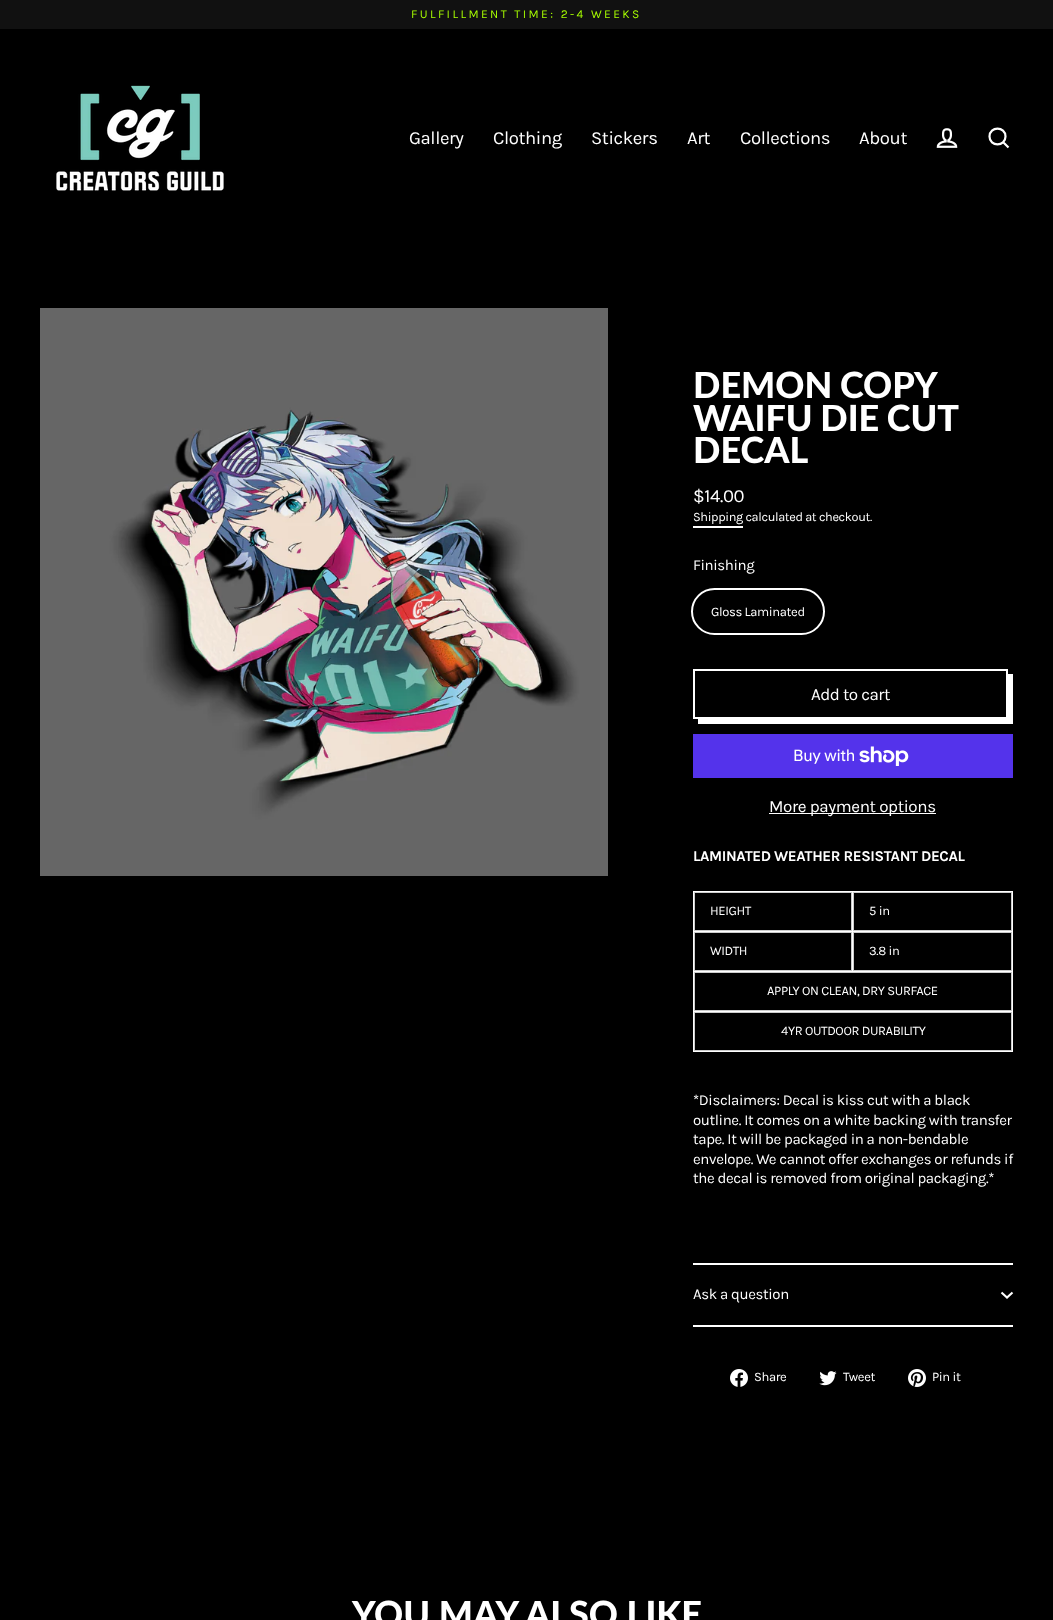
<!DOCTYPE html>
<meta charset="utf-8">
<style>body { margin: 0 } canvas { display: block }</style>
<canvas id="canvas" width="1053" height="1620"></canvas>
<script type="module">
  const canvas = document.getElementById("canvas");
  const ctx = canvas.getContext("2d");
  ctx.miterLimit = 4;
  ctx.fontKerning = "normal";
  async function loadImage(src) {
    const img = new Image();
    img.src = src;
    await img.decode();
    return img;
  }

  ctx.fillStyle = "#000000";
  ctx.fillRect(0, 0, 1053, 1620);
  ctx.fillStyle = "#111111";
  ctx.fillRect(0, 0, 1053, 29);
  ctx.letterSpacing = "2.4px";
  ctx.font = "12px Karla";
  ctx.fillStyle = "#a8ff00";
  ctx.fillText("FULFILLMENT TIME: 2-4 WEEKS", 411, 18);
  ctx.drawImage(await loadImage("img1.png"), 56, 85, 168, 106);
  ctx.letterSpacing = "-0.38px";
  ctx.font = "18.5px Karla";
  ctx.fillStyle = "#ffffff";
  ctx.fillText("Gallery", 409, 144);
  ctx.fillText("Clothing", 493, 144);
  ctx.fillText("Stickers", 591, 144);
  ctx.fillText("Art", 687, 144);
  ctx.fillText("Collections", 740, 144);
  ctx.fillText("About", 859, 144);
  ctx.drawImage(await loadImage("img2.png"), 936, 128, 22, 20);
  ctx.beginPath();
  ctx.moveTo(1005.5, 136.5);
  ctx.bezierCurveTo(1005.5, 147, 989.5, 147, 989.5, 136.5);
  ctx.bezierCurveTo(989.5, 126, 1005.5, 126, 1005.5, 136.5);
  ctx.closePath();
  ctx.moveTo(1008.5, 147.5);
  ctx.lineTo(1003.5, 142.5);
  ctx.strokeStyle = "#ffffff";
  ctx.lineWidth = 2.2;
  ctx.stroke();
  ctx.drawImage(await loadImage("img3.png"), 40, 308, 568, 568);
  ctx.letterSpacing = "0px";
  ctx.wordSpacing = "-1px";
  ctx.font = "900 36px Lato";
  ctx.fillText("DEMON COPY", 693, 398);
  ctx.fillText("WAIFU DIE CUT", 693, 431);
  ctx.wordSpacing = "0px";
  ctx.fillText("DECAL", 693, 463);
  ctx.letterSpacing = "-0.38px";
  ctx.font = "18.5px Karla";
  ctx.fillText("$14.00", 693, 502);
  ctx.font = "12.75px Karla";
  ctx.fillText("Shipping calculated at checkout.", 693, 521);
  ctx.fillRect(693, 526, 50, 2);
  ctx.font = "15px Karla";
  ctx.fillText("Finishing", 693, 570);
  ctx.beginPath();
  ctx.roundRect(692, 589, 132, 45, 22.5);
  ctx.lineWidth = 2;
  ctx.stroke();
  ctx.font = "13px Karla";
  ctx.fillText("Gloss Laminated", 711, 616);
  ctx.beginPath();
  ctx.moveTo(698, 719);
  ctx.lineTo(698, 724);
  ctx.lineTo(1013, 724);
  ctx.lineTo(1013, 674);
  ctx.lineTo(1008, 674);
  ctx.lineTo(1008, 719);
  ctx.closePath();
  ctx.fill();
  ctx.strokeRect(694, 670, 313, 48);
  ctx.letterSpacing = "-0.5px";
  ctx.font = "17px Karla";
  ctx.fillText("Add to cart", 811, 700);
  ctx.fillStyle = "#5433eb";
  ctx.fillRect(693, 734, 320, 44);
  ctx.letterSpacing = "-0.38px";
  ctx.font = "16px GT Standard";
  ctx.fillStyle = "#ffffff";
  ctx.fillText("Buy with", 793, 761);
  ctx.drawImage(await loadImage("img4.png"), 859, 746, 50, 20);
  ctx.fillRect(769, 813, 167, 1);
  ctx.font = "17px Karla";
  ctx.fillText("More payment options", 769, 812);
  ctx.font = "bold 15px Karla";
  ctx.fillText("LAMINATED WEATHER RESISTANT DECAL", 693, 861);
  ctx.fillRect(693, 891, 320, 161);
  ctx.fillStyle = "#000000";
  ctx.beginPath();
  ctx.rect(694.5, 892.5, 157, 38);
  ctx.fill();
  ctx.strokeStyle = "#cccccc";
  ctx.lineWidth = 1;
  ctx.stroke();
  ctx.font = "13px Karla";
  ctx.fillStyle = "#ffffff";
  ctx.fillText("HEIGHT", 710, 915);
  ctx.fillStyle = "#000000";
  ctx.beginPath();
  ctx.rect(853.5, 892.5, 158, 38);
  ctx.fill();
  ctx.stroke();
  ctx.fillStyle = "#ffffff";
  ctx.fillText("5 in", 869, 915);
  ctx.fillStyle = "#000000";
  ctx.beginPath();
  ctx.rect(694.5, 932.5, 157, 38);
  ctx.fill();
  ctx.stroke();
  ctx.fillStyle = "#ffffff";
  ctx.fillText("WIDTH", 710, 955);
  ctx.fillStyle = "#000000";
  ctx.beginPath();
  ctx.rect(853.5, 932.5, 158, 38);
  ctx.fill();
  ctx.stroke();
  ctx.fillStyle = "#ffffff";
  ctx.fillText("3.8 in", 869, 955);
  ctx.fillStyle = "#000000";
  ctx.beginPath();
  ctx.rect(694.5, 972.5, 317, 38);
  ctx.fill();
  ctx.stroke();
  ctx.fillStyle = "#ffffff";
  ctx.fillText("APPLY ON CLEAN, DRY SURFACE", 767, 995);
  ctx.fillStyle = "#000000";
  ctx.beginPath();
  ctx.rect(694.5, 1012.5, 317, 38);
  ctx.fill();
  ctx.stroke();
  ctx.fillStyle = "#ffffff";
  ctx.fillText("4YR OUTDOOR DURABILITY", 781, 1035);
  ctx.font = "15px Karla";
  ctx.fillText("*Disclaimers: Decal is kiss cut with a black", 693, 1105);
  ctx.fillText("outline. It comes on a white backing with transfer", 693, 1125);
  ctx.fillText("tape. It will be packaged in a non-bendable", 693, 1144);
  ctx.fillText("envelope. We cannot offer exchanges or refunds if", 693, 1164);
  ctx.fillText("the decal is removed from original packaging.*", 693, 1183);
  ctx.fillRect(693, 1325, 320, 2);
  ctx.fillRect(693, 1263, 320, 2);
  ctx.fillText("Ask a question", 693, 1299);
  ctx.beginPath();
  ctx.moveTo(1001.5, 1292.5);
  ctx.lineTo(1007, 1297.5);
  ctx.lineTo(1012.5, 1292.5);
  ctx.strokeStyle = "#ffffff";
  ctx.lineWidth = 2.1;
  ctx.stroke();
  ctx.drawImage(await loadImage("img5.png"), 730, 1369, 18, 18);
  ctx.font = "13px Karla";
  ctx.fillText("Share", 754, 1381);
  ctx.drawImage(await loadImage("img6.png"), 819, 1371, 18, 15);
  ctx.fillText("Tweet", 843, 1381);
  ctx.drawImage(await loadImage("img7.png"), 908, 1369, 18, 18);
  ctx.fillText("Pin it", 932, 1381);
  ctx.letterSpacing = "0px";
  ctx.font = "900 36px Lato";
  ctx.fillText("YOU MAY ALSO LIKE", 352, 1627);
</script>
